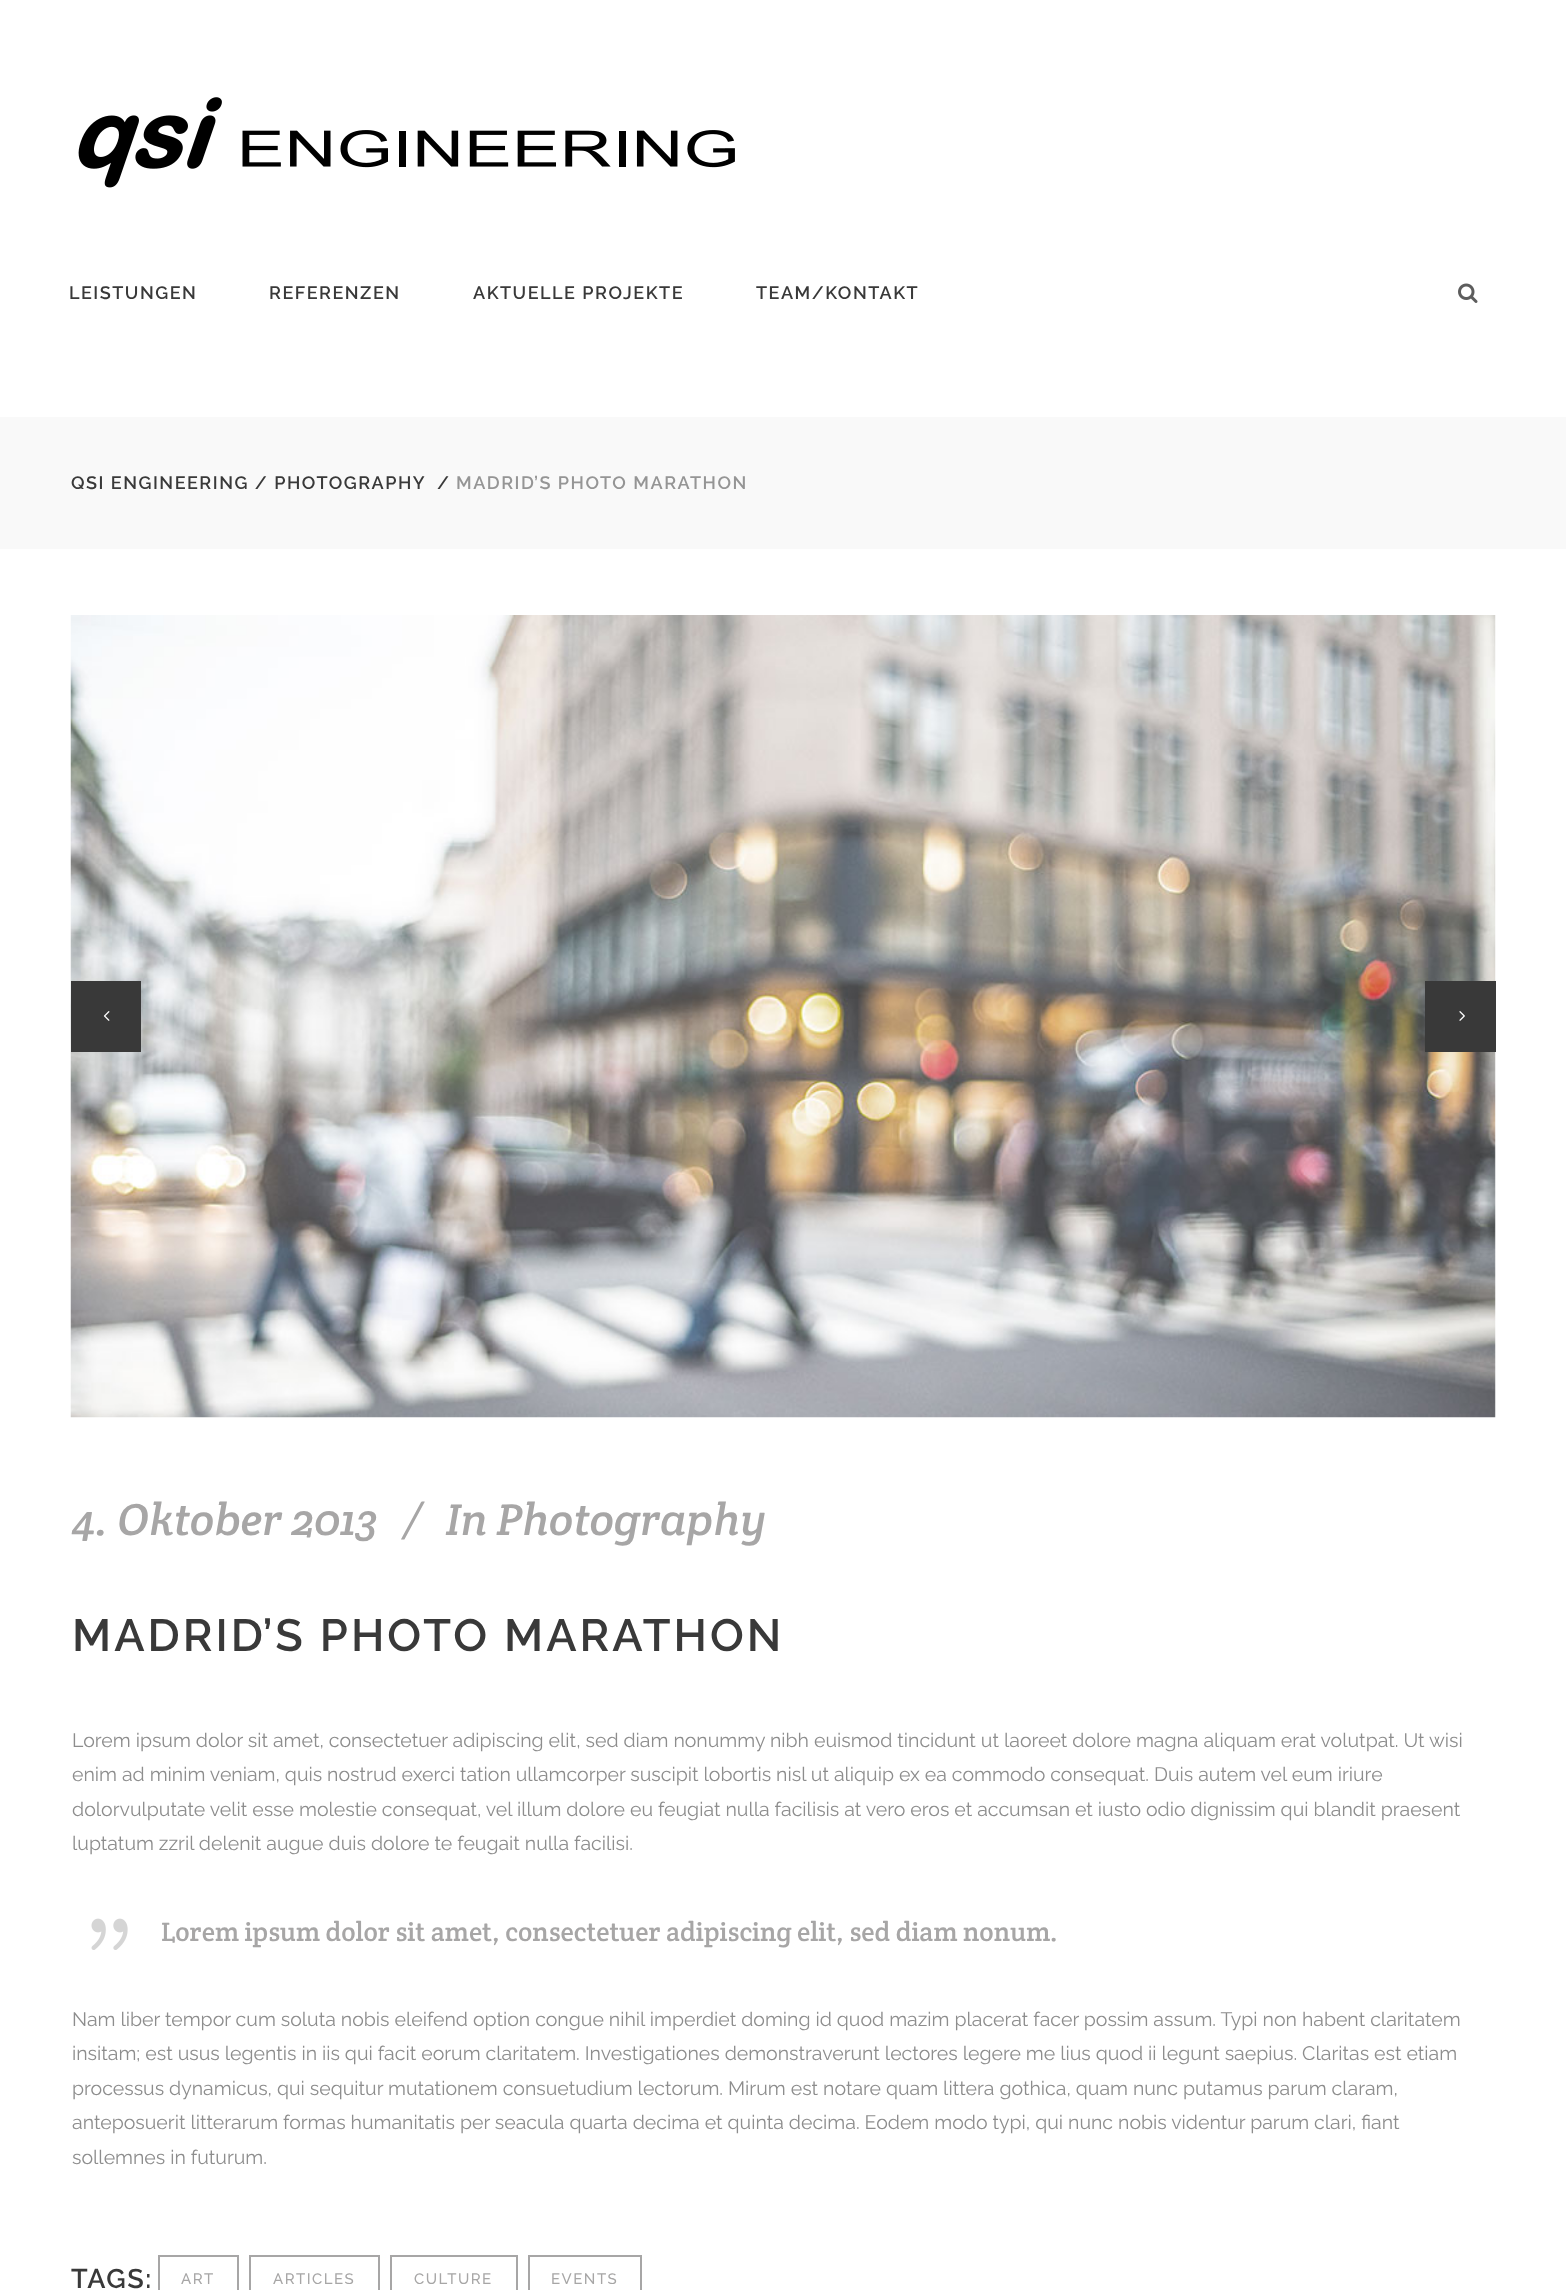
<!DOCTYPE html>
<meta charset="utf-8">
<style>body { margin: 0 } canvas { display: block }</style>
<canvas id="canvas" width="1566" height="2290"></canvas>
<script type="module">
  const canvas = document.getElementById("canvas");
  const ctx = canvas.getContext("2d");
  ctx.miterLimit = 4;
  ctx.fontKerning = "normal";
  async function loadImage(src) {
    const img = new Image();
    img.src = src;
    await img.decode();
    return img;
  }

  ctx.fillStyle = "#ffffff";
  ctx.fillRect(0, 0, 1566, 2290);
  ctx.drawImage(await loadImage("img1.png"), 78, 97, 657, 91);
  ctx.letterSpacing = "1.5px";
  ctx.font = "600 18px Raleway";
  ctx.fillStyle = "#393939";
  ctx.fillText("LEISTUNGEN", 69, 299);
  ctx.fillText("REFERENZEN", 269, 299);
  ctx.fillText("AKTUELLE PROJEKTE", 473, 299);
  ctx.fillText("TEAM/KONTAKT", 756, 299);
  ctx.drawImage(await loadImage("img2.png"), 1458, 283, 20, 20);
  ctx.fillStyle = "#f9f9f9";
  ctx.fillRect(0, 417, 1566, 132);
  ctx.fillStyle = "#393939";
  ctx.fillText("QSI ENGINEERING / PHOTOGRAPHY", 71, 489);
  ctx.fillText("/", 437, 489);
  ctx.fillStyle = "#959595";
  ctx.fillText("MADRID’S PHOTO MARATHON", 456, 489);
  ctx.drawImage(await loadImage("img3.png"), 70, 615, 1426, 803);
  ctx.fillStyle = "#393939";
  ctx.fillRect(71, 981, 70, 71);
  ctx.drawImage(await loadImage("img4.png"), 103, 1011, 7, 10);
  ctx.fillRect(1425, 981, 71, 71);
  ctx.drawImage(await loadImage("img5.png"), 1459, 1011, 6, 10);
  ctx.letterSpacing = "0px";
  ctx.font = "italic 45px Crete Round";
  ctx.fillStyle = "#a7a6a6";
  ctx.fillText("4. Oktober 2013", 72, 1535);
  ctx.fillText("/", 402, 1535);
  ctx.fillText("In Photography", 446, 1535);
  ctx.letterSpacing = "3px";
  ctx.font = "600 45px Raleway";
  ctx.fillStyle = "#393939";
  ctx.fillText("MADRID’S PHOTO MARATHON", 72, 1651);
  ctx.letterSpacing = "0px";
  ctx.font = "19.5px Raleway";
  ctx.fillStyle = "#8d8d8d";
  ctx.fillText("Lorem ipsum dolor sit amet, consectetuer adipiscing elit, sed diam nonummy nibh euismod tincidunt ut laoreet dolore magna aliquam erat volutpat. Ut wisi", 72, 1747);
  ctx.fillText("enim ad minim veniam, quis nostrud exerci tation ullamcorper suscipit lobortis nisl ut aliquip ex ea commodo consequat. Duis autem vel eum iriure", 72, 1781);
  ctx.fillText("dolorvulputate velit esse molestie consequat, vel illum dolore eu feugiat nulla facilisis at vero eros et accumsan et iusto odio dignissim qui blandit praesent", 72, 1816);
  ctx.fillText("luptatum zzril delenit augue duis dolore te feugait nulla facilisi.", 72, 1850);
  ctx.drawImage(await loadImage("img6.png"), 91, 1918, 37, 32);
  ctx.font = "27px Crete Round";
  ctx.fillStyle = "#a7a6a6";
  ctx.fillText("Lorem ipsum dolor sit amet, consectetuer adipiscing elit, sed diam nonum.", 161, 1941);
  ctx.font = "19.5px Raleway";
  ctx.fillStyle = "#8d8d8d";
  ctx.fillText("Nam liber tempor cum soluta nobis eleifend option congue nihil imperdiet doming id quod mazim placerat facer possim assum. Typi non habent claritatem", 72, 2026);
  ctx.fillText("insitam; est usus legentis in iis qui facit eorum claritatem. Investigationes demonstraverunt lectores legere me lius quod ii legunt saepius. Claritas est etiam", 72, 2060);
  ctx.fillText("processus dynamicus, qui sequitur mutationem consuetudium lectorum. Mirum est notare quam littera gothica, quam nunc putamus parum claram,", 72, 2095);
  ctx.fillText("anteposuerit litterarum formas humanitatis per seacula quarta decima et quinta decima. Eodem modo typi, qui nunc nobis videntur parum clari, fiant", 72, 2129);
  ctx.fillText("sollemnes in futurum.", 72, 2164);
  ctx.letterSpacing = "1.5px";
  ctx.font = "600 27px Raleway";
  ctx.fillStyle = "#393939";
  ctx.fillText("TAGS:", 71, 2288);
  ctx.strokeStyle = "#a7a6a6";
  ctx.lineWidth = 2;
  ctx.strokeRect(159, 2256, 79, 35);
  ctx.font = "500 15px Raleway";
  ctx.fillStyle = "#a7a6a6";
  ctx.fillText("ART", 181, 2284);
  ctx.strokeRect(250, 2256, 129, 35);
  ctx.fillText("ARTICLES", 273, 2284);
  ctx.strokeRect(391, 2256, 126, 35);
  ctx.fillText("CULTURE", 414, 2284);
  ctx.strokeRect(529, 2256, 112, 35);
  ctx.fillText("EVENTS", 551, 2284);
</script>
